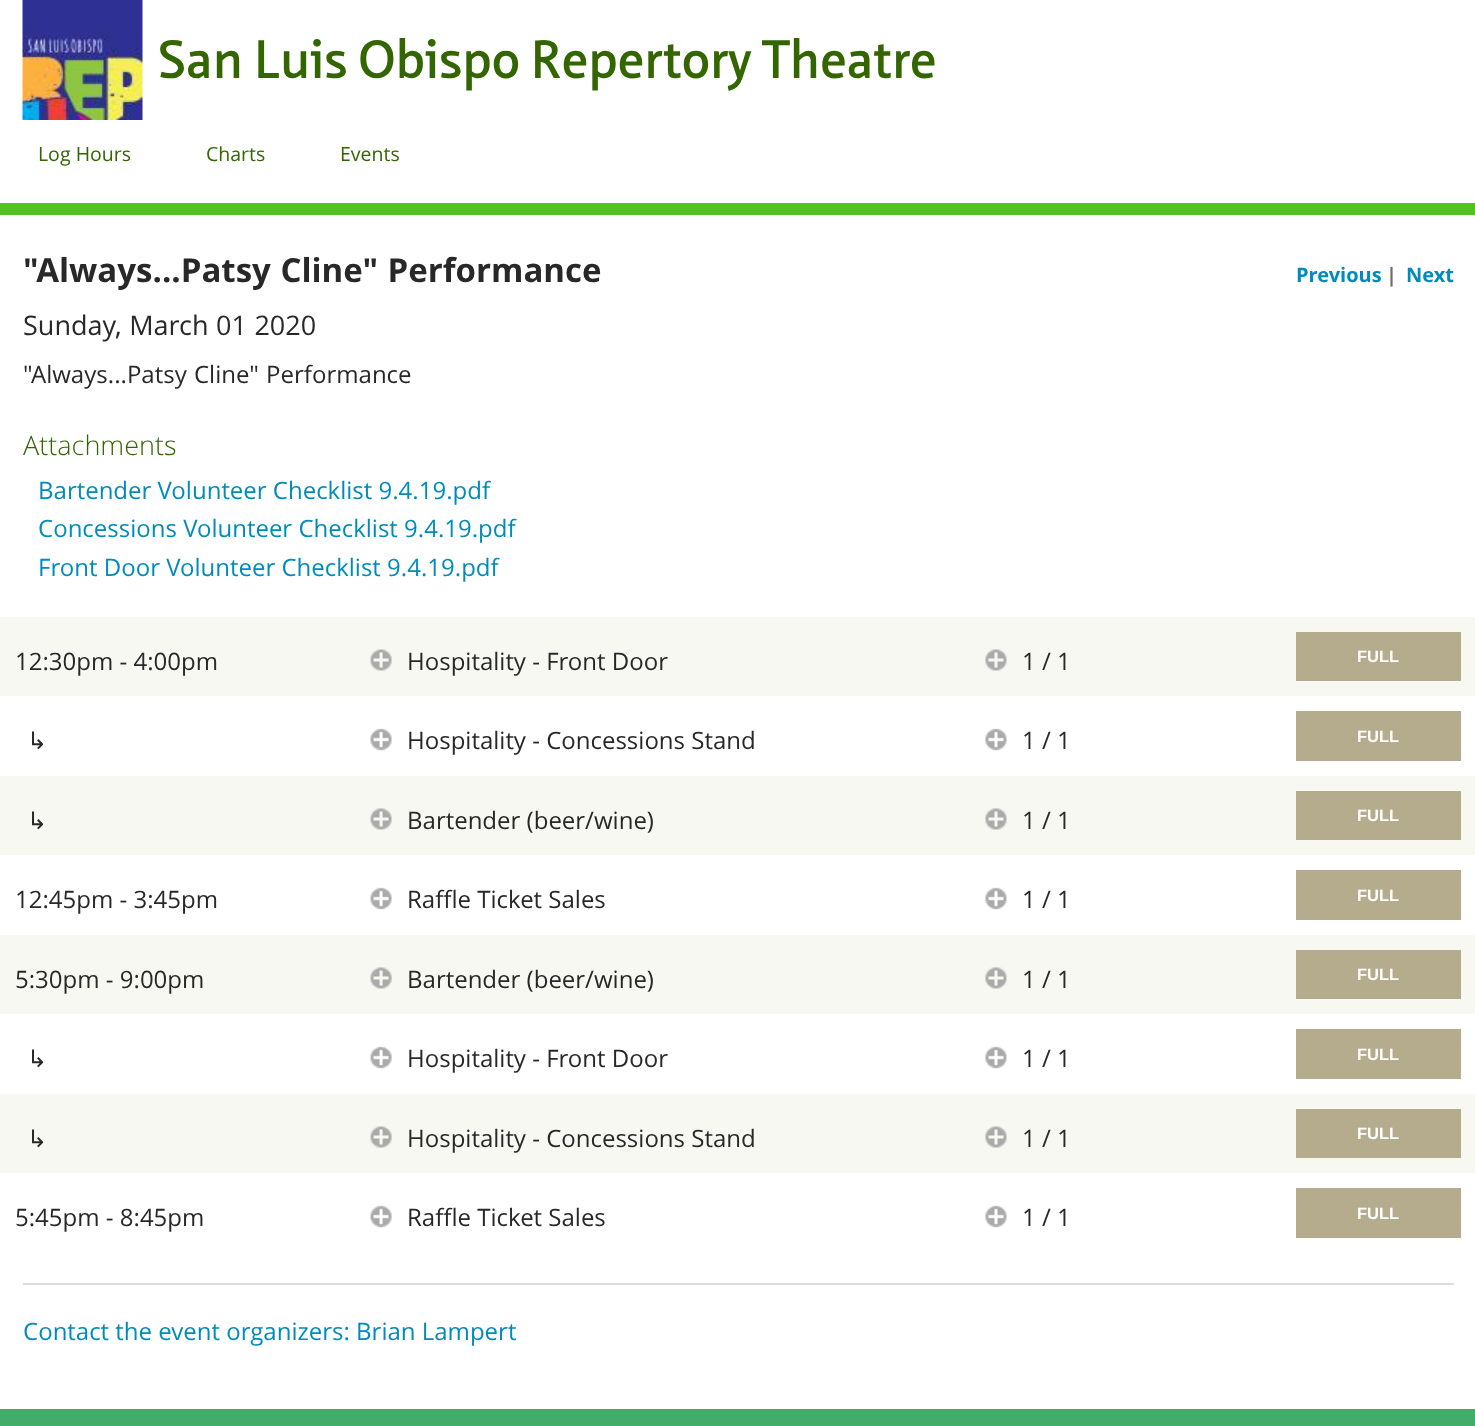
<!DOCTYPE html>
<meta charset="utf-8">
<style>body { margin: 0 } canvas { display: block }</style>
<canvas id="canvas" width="1475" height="1426"></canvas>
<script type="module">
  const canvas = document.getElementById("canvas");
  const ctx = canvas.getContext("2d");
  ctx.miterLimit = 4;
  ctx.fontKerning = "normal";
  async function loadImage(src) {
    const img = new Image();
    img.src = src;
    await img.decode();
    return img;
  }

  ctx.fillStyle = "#ffffff";
  ctx.fillRect(0, 0, 1475, 1426);
  ctx.drawImage(await loadImage("img1.png"), 22, 0, 121, 120);
  ctx.font = "600 52.5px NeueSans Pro";
  ctx.fillStyle = "#336600";
  ctx.fillText("San Luis Obispo Repertory Theatre", 158, 78);
  ctx.font = "19.5px Open Sans";
  ctx.fillText("Log Hours", 38, 161);
  ctx.fillText("Charts", 206, 161);
  ctx.fillText("Events", 340, 161);
  ctx.fillStyle = "#51c21e";
  ctx.fillRect(0, 203, 1475, 12);
  ctx.wordSpacing = "1px";
  ctx.font = "bold 33px Open Sans";
  ctx.fillStyle = "#282828";
  ctx.fillText("\"Always...Patsy Cline\" Performance", 23, 282);
  ctx.wordSpacing = "0px";
  ctx.font = "bold 20px Open Sans";
  ctx.fillStyle = "#008cba";
  ctx.fillText("Previous", 1296, 282);
  ctx.fillStyle = "#6f6f6f";
  ctx.fillText("|", 1386, 282);
  ctx.fillStyle = "#008cba";
  ctx.fillText("Next", 1406, 282);
  ctx.wordSpacing = "0.5px";
  ctx.font = "27px Open Sans";
  ctx.fillStyle = "#282828";
  ctx.fillText("Sunday, March 01 2020", 23, 335);
  ctx.wordSpacing = "1px";
  ctx.font = "24px Open Sans";
  ctx.fillText("\"Always...Patsy Cline\" Performance", 23, 383);
  ctx.wordSpacing = "0px";
  ctx.font = "300 27px Open Sans";
  ctx.fillStyle = "#336600";
  ctx.fillText("Attachments", 23, 455);
  ctx.font = "24px Open Sans";
  ctx.fillStyle = "#008cba";
  ctx.fillText("Bartender Volunteer Checklist 9.4.19.pdf", 38, 499);
  ctx.fillText("Concessions Volunteer Checklist 9.4.19.pdf", 38, 537);
  ctx.fillText("Front Door Volunteer Checklist 9.4.19.pdf", 38, 576);
  ctx.fillStyle = "#f8f8f2";
  ctx.fillRect(0, 617, 1475, 79);
  ctx.fillStyle = "#282828";
  ctx.fillText("12:30pm - 4:00pm", 15, 670);
  ctx.drawImage(await loadImage("img2.png"), 370, 649, 22, 22);
  ctx.fillText("Hospitality - Front Door", 407, 670);
  ctx.drawImage(await loadImage("img3.png"), 985, 649, 22, 22);
  ctx.fillText("1 / 1", 1022, 670);
  ctx.fillStyle = "#b4ac8c";
  ctx.fillRect(1296, 632, 165, 49);
  ctx.font = "bold 16.5px Liberation Sans";
  ctx.fillStyle = "#ffffff";
  ctx.fillText("FULL", 1357, 662);
  ctx.font = "24px DejaVu Sans";
  ctx.fillStyle = "#282828";
  ctx.fillText("↳", 27, 749);
  ctx.drawImage(await loadImage("img4.png"), 370, 728, 22, 23);
  ctx.font = "24px Open Sans";
  ctx.fillText("Hospitality - Concessions Stand", 407, 749);
  ctx.drawImage(await loadImage("img5.png"), 985, 728, 22, 23);
  ctx.fillText("1 / 1", 1022, 749);
  ctx.fillStyle = "#b4ac8c";
  ctx.fillRect(1296, 711, 165, 50);
  ctx.font = "bold 16.5px Liberation Sans";
  ctx.fillStyle = "#ffffff";
  ctx.fillText("FULL", 1357, 742);
  ctx.fillStyle = "#f8f8f2";
  ctx.fillRect(0, 776, 1475, 79);
  ctx.font = "24px DejaVu Sans";
  ctx.fillStyle = "#282828";
  ctx.fillText("↳", 27, 829);
  ctx.drawImage(await loadImage("img2.png"), 370, 808, 22, 22);
  ctx.font = "24px Open Sans";
  ctx.fillText("Bartender (beer/wine)", 407, 829);
  ctx.drawImage(await loadImage("img3.png"), 985, 808, 22, 22);
  ctx.fillText("1 / 1", 1022, 829);
  ctx.fillStyle = "#b4ac8c";
  ctx.fillRect(1296, 791, 165, 49);
  ctx.font = "bold 16.5px Liberation Sans";
  ctx.fillStyle = "#ffffff";
  ctx.fillText("FULL", 1357, 821);
  ctx.font = "24px Open Sans";
  ctx.fillStyle = "#282828";
  ctx.fillText("12:45pm - 3:45pm", 15, 908);
  ctx.drawImage(await loadImage("img4.png"), 370, 887, 22, 23);
  ctx.fillText("Raffle Ticket Sales", 407, 908);
  ctx.drawImage(await loadImage("img5.png"), 985, 887, 22, 23);
  ctx.fillText("1 / 1", 1022, 908);
  ctx.fillStyle = "#b4ac8c";
  ctx.fillRect(1296, 870, 165, 50);
  ctx.font = "bold 16.5px Liberation Sans";
  ctx.fillStyle = "#ffffff";
  ctx.fillText("FULL", 1357, 901);
  ctx.fillStyle = "#f8f8f2";
  ctx.fillRect(0, 935, 1475, 79);
  ctx.font = "24px Open Sans";
  ctx.fillStyle = "#282828";
  ctx.fillText("5:30pm - 9:00pm", 15, 988);
  ctx.drawImage(await loadImage("img2.png"), 370, 967, 22, 22);
  ctx.fillText("Bartender (beer/wine)", 407, 988);
  ctx.drawImage(await loadImage("img3.png"), 985, 967, 22, 22);
  ctx.fillText("1 / 1", 1022, 988);
  ctx.fillStyle = "#b4ac8c";
  ctx.fillRect(1296, 950, 165, 49);
  ctx.font = "bold 16.5px Liberation Sans";
  ctx.fillStyle = "#ffffff";
  ctx.fillText("FULL", 1357, 980);
  ctx.font = "24px DejaVu Sans";
  ctx.fillStyle = "#282828";
  ctx.fillText("↳", 27, 1067);
  ctx.drawImage(await loadImage("img4.png"), 370, 1046, 22, 23);
  ctx.font = "24px Open Sans";
  ctx.fillText("Hospitality - Front Door", 407, 1067);
  ctx.drawImage(await loadImage("img5.png"), 985, 1046, 22, 23);
  ctx.fillText("1 / 1", 1022, 1067);
  ctx.fillStyle = "#b4ac8c";
  ctx.fillRect(1296, 1029, 165, 50);
  ctx.font = "bold 16.5px Liberation Sans";
  ctx.fillStyle = "#ffffff";
  ctx.fillText("FULL", 1357, 1060);
  ctx.fillStyle = "#f8f8f2";
  ctx.fillRect(0, 1094, 1475, 79);
  ctx.font = "24px DejaVu Sans";
  ctx.fillStyle = "#282828";
  ctx.fillText("↳", 27, 1147);
  ctx.drawImage(await loadImage("img2.png"), 370, 1126, 22, 22);
  ctx.font = "24px Open Sans";
  ctx.fillText("Hospitality - Concessions Stand", 407, 1147);
  ctx.drawImage(await loadImage("img3.png"), 985, 1126, 22, 22);
  ctx.fillText("1 / 1", 1022, 1147);
  ctx.fillStyle = "#b4ac8c";
  ctx.fillRect(1296, 1109, 165, 49);
  ctx.font = "bold 16.5px Liberation Sans";
  ctx.fillStyle = "#ffffff";
  ctx.fillText("FULL", 1357, 1139);
  ctx.font = "24px Open Sans";
  ctx.fillStyle = "#282828";
  ctx.fillText("5:45pm - 8:45pm", 15, 1226);
  ctx.drawImage(await loadImage("img4.png"), 370, 1205, 22, 23);
  ctx.fillText("Raffle Ticket Sales", 407, 1226);
  ctx.drawImage(await loadImage("img5.png"), 985, 1205, 22, 23);
  ctx.fillText("1 / 1", 1022, 1226);
  ctx.fillStyle = "#b4ac8c";
  ctx.fillRect(1296, 1188, 165, 50);
  ctx.font = "bold 16.5px Liberation Sans";
  ctx.fillStyle = "#ffffff";
  ctx.fillText("FULL", 1357, 1219);
  ctx.fillStyle = "#dddddd";
  ctx.fillRect(23, 1283, 1431, 2);
  ctx.font = "24px Open Sans";
  ctx.fillStyle = "#008cba";
  ctx.fillText("Contact the event organizers: Brian Lampert", 23, 1340);
  ctx.fillStyle = "#43ac6a";
  ctx.fillRect(0, 1409, 1475, 17);
</script>
